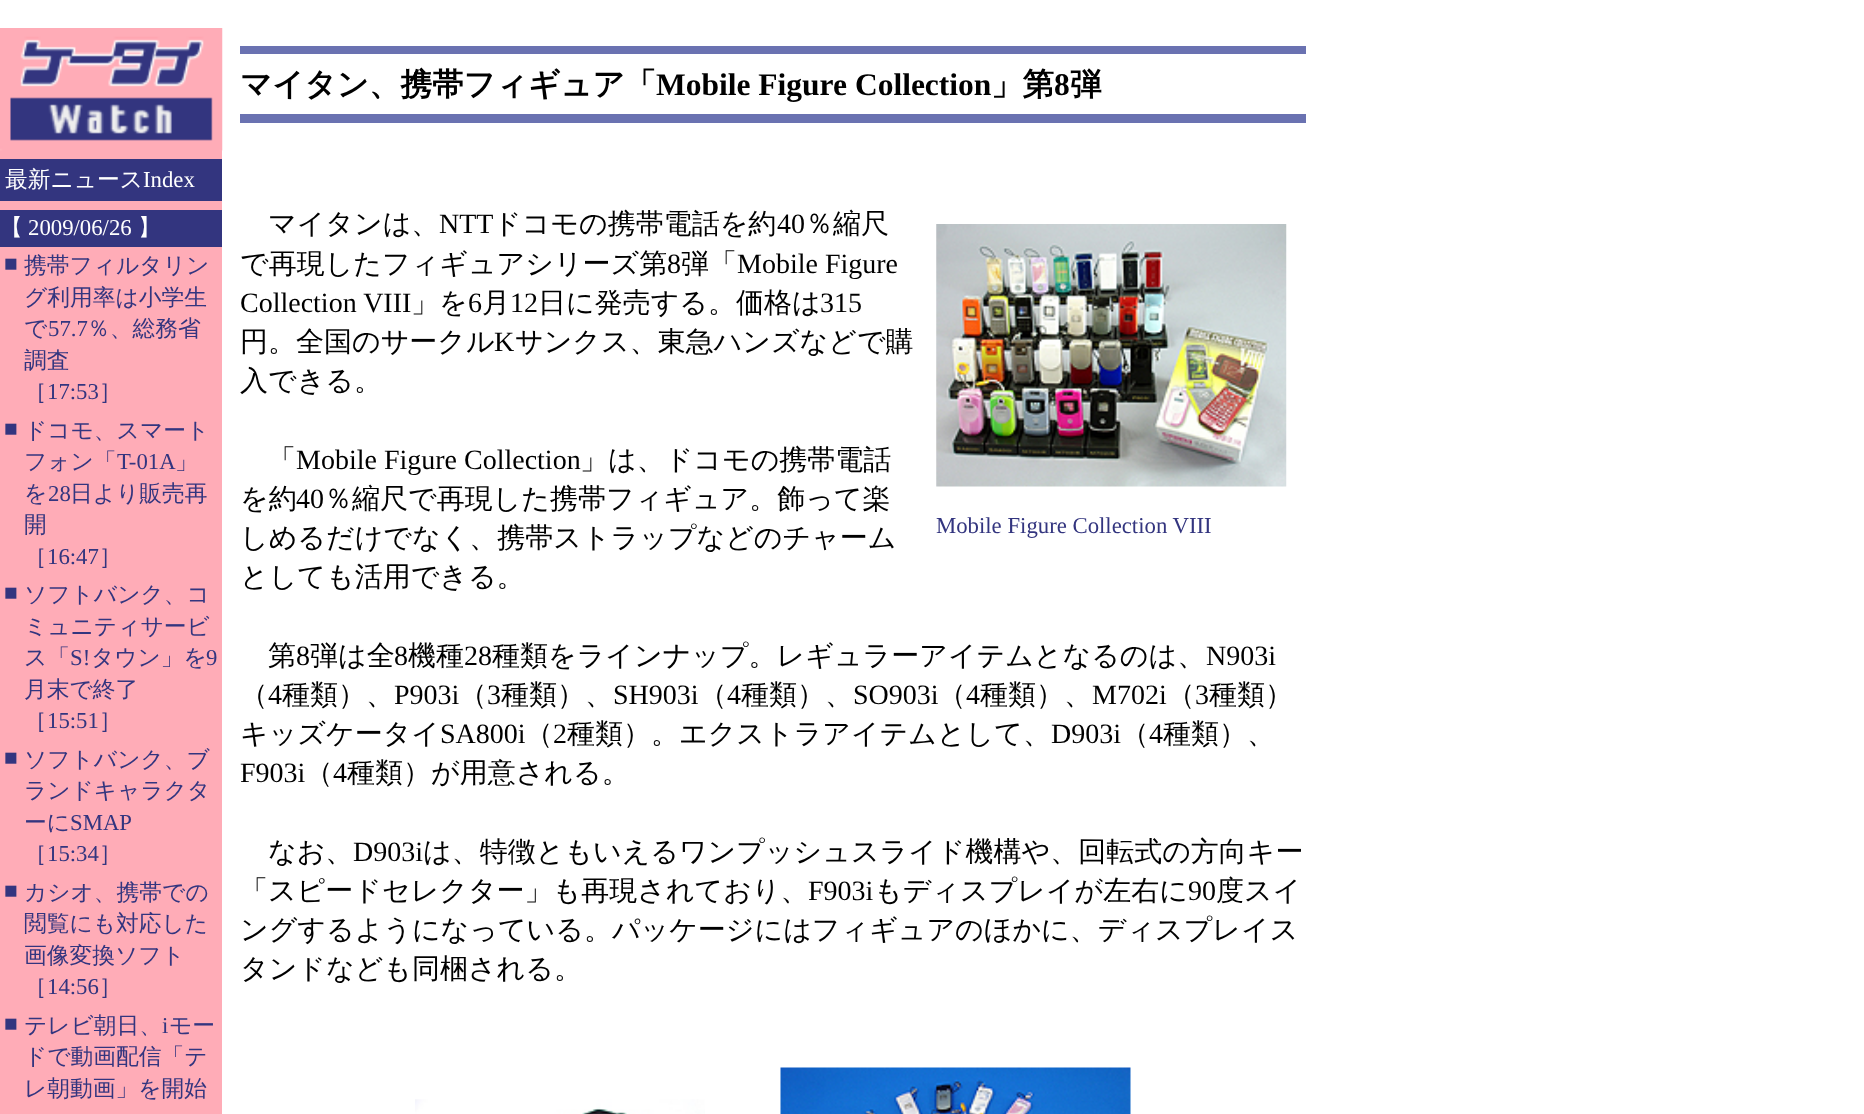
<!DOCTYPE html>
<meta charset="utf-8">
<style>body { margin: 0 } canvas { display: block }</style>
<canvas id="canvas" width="1864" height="1114"></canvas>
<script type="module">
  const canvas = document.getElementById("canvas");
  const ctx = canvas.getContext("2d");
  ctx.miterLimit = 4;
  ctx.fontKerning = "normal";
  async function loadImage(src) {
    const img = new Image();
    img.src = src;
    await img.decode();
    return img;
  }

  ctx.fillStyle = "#ffffff";
  ctx.fillRect(0, 0, 1864, 1114);
  ctx.fillStyle = "#ffacb7";
  ctx.fillRect(0, 150, 222, 964);
  ctx.drawImage(await loadImage("img1.png"), 0, 28, 223, 123);
  ctx.fillStyle = "#33357f";
  ctx.fillRect(0, 159, 222, 42);
  ctx.font = "500 22.75px WenQuanYi Zen Hei";
  ctx.fillStyle = "#ffffff";
  ctx.fillText("最新ニュース", 5, 187);
  ctx.font = "22.75px Liberation Serif";
  ctx.fillText("Index", 143, 187);
  ctx.fillStyle = "#33357f";
  ctx.fillRect(0, 210, 222, 37);
  ctx.font = "500 22.75px WenQuanYi Zen Hei";
  ctx.fillStyle = "#ffffff";
  ctx.fillText("【", 0, 235);
  ctx.font = "22.75px Liberation Serif";
  ctx.fillText("2009/06/26", 28, 235);
  ctx.font = "500 22.75px WenQuanYi Zen Hei";
  ctx.fillText("】", 138, 235);
  ctx.font = "22.75px Liberation Serif";
  ctx.fillStyle = "#33357f";
  ctx.fillText("■", 4, 271);
  ctx.font = "500 22.75px WenQuanYi Zen Hei";
  ctx.fillText("携帯フィルタリン", 24, 273);
  ctx.fillText("グ利用率は小学生", 24, 305);
  ctx.fillText("で", 24, 336);
  ctx.font = "22.75px Liberation Serif";
  ctx.fillText("57.7", 48, 336);
  ctx.font = "500 22.75px WenQuanYi Zen Hei";
  ctx.fillText("％、総務省", 87, 336);
  ctx.fillText("調査", 24, 368);
  ctx.fillText("［", 24, 399);
  ctx.font = "22.75px Liberation Serif";
  ctx.fillText("17:53", 47, 399);
  ctx.font = "500 22.75px WenQuanYi Zen Hei";
  ctx.fillText("］", 99, 399);
  ctx.font = "22.75px Liberation Serif";
  ctx.fillText("■", 4, 436);
  ctx.font = "500 22.75px WenQuanYi Zen Hei";
  ctx.fillText("ドコモ、スマート", 24, 438);
  ctx.fillText("フォン「", 24, 469);
  ctx.font = "22.75px Liberation Serif";
  ctx.fillText("T-01A", 117, 469);
  ctx.font = "500 22.75px WenQuanYi Zen Hei";
  ctx.fillText("」", 175, 469);
  ctx.fillText("を", 24, 501);
  ctx.font = "22.75px Liberation Serif";
  ctx.fillText("28", 48, 501);
  ctx.font = "500 22.75px WenQuanYi Zen Hei";
  ctx.fillText("日より販売再", 70, 501);
  ctx.fillText("開", 24, 532);
  ctx.fillText("［", 24, 564);
  ctx.font = "22.75px Liberation Serif";
  ctx.fillText("16:47", 47, 564);
  ctx.font = "500 22.75px WenQuanYi Zen Hei";
  ctx.fillText("］", 99, 564);
  ctx.font = "22.75px Liberation Serif";
  ctx.fillText("■", 4, 600);
  ctx.font = "500 22.75px WenQuanYi Zen Hei";
  ctx.fillText("ソフトバンク、コ", 24, 602);
  ctx.fillText("ミュニティサービ", 24, 634);
  ctx.fillText("ス「", 24, 665);
  ctx.font = "22.75px Liberation Serif";
  ctx.fillText("S!", 70, 665);
  ctx.font = "500 22.75px WenQuanYi Zen Hei";
  ctx.fillText("タウン」を", 91, 665);
  ctx.font = "22.75px Liberation Serif";
  ctx.fillText("9", 206, 665);
  ctx.font = "500 22.75px WenQuanYi Zen Hei";
  ctx.fillText("月末で終了", 24, 697);
  ctx.fillText("［", 24, 728);
  ctx.font = "22.75px Liberation Serif";
  ctx.fillText("15:51", 47, 728);
  ctx.font = "500 22.75px WenQuanYi Zen Hei";
  ctx.fillText("］", 99, 728);
  ctx.font = "22.75px Liberation Serif";
  ctx.fillText("■", 4, 765);
  ctx.font = "500 22.75px WenQuanYi Zen Hei";
  ctx.fillText("ソフトバンク、ブ", 24, 767);
  ctx.fillText("ランドキャラクタ", 24, 798);
  ctx.fillText("ーに", 24, 830);
  ctx.font = "22.75px Liberation Serif";
  ctx.fillText("SMAP", 70, 830);
  ctx.font = "500 22.75px WenQuanYi Zen Hei";
  ctx.fillText("［", 24, 861);
  ctx.font = "22.75px Liberation Serif";
  ctx.fillText("15:34", 47, 861);
  ctx.font = "500 22.75px WenQuanYi Zen Hei";
  ctx.fillText("］", 99, 861);
  ctx.font = "22.75px Liberation Serif";
  ctx.fillText("■", 4, 898);
  ctx.font = "500 22.75px WenQuanYi Zen Hei";
  ctx.fillText("カシオ、携帯での", 24, 900);
  ctx.fillText("閲覧にも対応した", 24, 931);
  ctx.fillText("画像変換ソフト", 24, 963);
  ctx.fillText("［", 24, 994);
  ctx.font = "22.75px Liberation Serif";
  ctx.fillText("14:56", 47, 994);
  ctx.font = "500 22.75px WenQuanYi Zen Hei";
  ctx.fillText("］", 99, 994);
  ctx.font = "22.75px Liberation Serif";
  ctx.fillText("■", 4, 1031);
  ctx.font = "500 22.75px WenQuanYi Zen Hei";
  ctx.fillText("テレビ朝日、", 24, 1033);
  ctx.font = "22.75px Liberation Serif";
  ctx.fillText("i", 162, 1033);
  ctx.font = "500 22.75px WenQuanYi Zen Hei";
  ctx.fillText("モー", 169, 1033);
  ctx.fillText("ドで動画配信「テ", 24, 1064);
  ctx.fillText("レ朝動画」を開始", 24, 1096);
  ctx.fillStyle = "#6a72b1";
  ctx.fillRect(240, 46, 1066, 8);
  ctx.font = "bold 31.5px WenQuanYi Zen Hei";
  ctx.fillStyle = "#000000";
  ctx.fillText("マイタン、携帯フィギュア「", 240, 95);
  ctx.font = "bold 31.5px Liberation Serif";
  ctx.fillText("Mobile Figure Collection", 656, 95);
  ctx.font = "bold 31.5px WenQuanYi Zen Hei";
  ctx.fillText("」第", 991, 95);
  ctx.font = "bold 31.5px Liberation Serif";
  ctx.fillText("8", 1054, 95);
  ctx.font = "bold 31.5px WenQuanYi Zen Hei";
  ctx.fillText("弾", 1070, 95);
  ctx.fillStyle = "#6a72b1";
  ctx.fillRect(240, 114, 1066, 9);
  ctx.font = "500 28px WenQuanYi Zen Hei";
  ctx.fillStyle = "#000000";
  ctx.fillText("マイタンは、", 268, 233);
  ctx.font = "28px Liberation Serif";
  ctx.fillText("NTT", 439, 233);
  ctx.font = "500 28px WenQuanYi Zen Hei";
  ctx.fillText("ドコモの携帯電話を約", 493, 233);
  ctx.font = "28px Liberation Serif";
  ctx.fillText("40", 777, 233);
  ctx.font = "500 28px WenQuanYi Zen Hei";
  ctx.fillText("％縮尺", 805, 233);
  ctx.fillText("で再現したフィギュアシリーズ第", 240, 273);
  ctx.font = "28px Liberation Serif";
  ctx.fillText("8", 667, 273);
  ctx.font = "500 28px WenQuanYi Zen Hei";
  ctx.fillText("弾「", 681, 273);
  ctx.font = "28px Liberation Serif";
  ctx.fillText("Mobile Figure", 737, 273);
  ctx.fillText("Collection VIII", 240, 312);
  ctx.font = "500 28px WenQuanYi Zen Hei";
  ctx.fillText("」を", 411, 312);
  ctx.font = "28px Liberation Serif";
  ctx.fillText("6", 468, 312);
  ctx.font = "500 28px WenQuanYi Zen Hei";
  ctx.fillText("月", 482, 312);
  ctx.font = "28px Liberation Serif";
  ctx.fillText("12", 510, 312);
  ctx.font = "500 28px WenQuanYi Zen Hei";
  ctx.fillText("日に発売する。価格は", 538, 312);
  ctx.font = "28px Liberation Serif";
  ctx.fillText("315", 820, 312);
  ctx.font = "500 28px WenQuanYi Zen Hei";
  ctx.fillText("円。全国のサークル", 240, 351);
  ctx.font = "28px Liberation Serif";
  ctx.fillText("K", 494, 351);
  ctx.font = "500 28px WenQuanYi Zen Hei";
  ctx.fillText("サンクス、東急ハンズなどで購", 515, 351);
  ctx.fillText("入できる。", 240, 390);
  ctx.fillText("「", 268, 469);
  ctx.font = "28px Liberation Serif";
  ctx.fillText("Mobile Figure Collection", 296, 469);
  ctx.font = "500 28px WenQuanYi Zen Hei";
  ctx.fillText("」は、ドコモの携帯電話", 580, 469);
  ctx.fillText("を約", 240, 508);
  ctx.font = "28px Liberation Serif";
  ctx.fillText("40", 296, 508);
  ctx.font = "500 28px WenQuanYi Zen Hei";
  ctx.fillText("％縮尺で再現した携帯フィギュア。飾って楽", 324, 508);
  ctx.fillText("しめるだけでなく、携帯ストラップなどのチャーム", 240, 547);
  ctx.drawImage(await loadImage("img2.png"), 936, 224, 351, 263);
  ctx.font = "22.75px Liberation Serif";
  ctx.fillStyle = "#33357f";
  ctx.fillText("Mobile Figure Collection VIII", 936, 533);
  ctx.font = "500 28px WenQuanYi Zen Hei";
  ctx.fillStyle = "#000000";
  ctx.fillText("としても活用できる。", 240, 586);
  ctx.fillText("第", 268, 665);
  ctx.font = "28px Liberation Serif";
  ctx.fillText("8", 296, 665);
  ctx.font = "500 28px WenQuanYi Zen Hei";
  ctx.fillText("弾は全", 310, 665);
  ctx.font = "28px Liberation Serif";
  ctx.fillText("8", 394, 665);
  ctx.font = "500 28px WenQuanYi Zen Hei";
  ctx.fillText("機種", 408, 665);
  ctx.font = "28px Liberation Serif";
  ctx.fillText("28", 464, 665);
  ctx.font = "500 28px WenQuanYi Zen Hei";
  ctx.fillText("種類をラインナップ。レギュラーアイテムとなるのは、", 492, 665);
  ctx.font = "28px Liberation Serif";
  ctx.fillText("N903i", 1206, 665);
  ctx.font = "500 28px WenQuanYi Zen Hei";
  ctx.fillText("（", 240, 704);
  ctx.font = "28px Liberation Serif";
  ctx.fillText("4", 268, 704);
  ctx.font = "500 28px WenQuanYi Zen Hei";
  ctx.fillText("種類）、", 282, 704);
  ctx.font = "28px Liberation Serif";
  ctx.fillText("P903i", 394, 704);
  ctx.font = "500 28px WenQuanYi Zen Hei";
  ctx.fillText("（", 459, 704);
  ctx.font = "28px Liberation Serif";
  ctx.fillText("3", 487, 704);
  ctx.font = "500 28px WenQuanYi Zen Hei";
  ctx.fillText("種類）、", 501, 704);
  ctx.font = "28px Liberation Serif";
  ctx.fillText("SH903i", 613, 704);
  ctx.font = "500 28px WenQuanYi Zen Hei";
  ctx.fillText("（", 699, 704);
  ctx.font = "28px Liberation Serif";
  ctx.fillText("4", 727, 704);
  ctx.font = "500 28px WenQuanYi Zen Hei";
  ctx.fillText("種類）、", 741, 704);
  ctx.font = "28px Liberation Serif";
  ctx.fillText("SO903i", 853, 704);
  ctx.font = "500 28px WenQuanYi Zen Hei";
  ctx.fillText("（", 938, 704);
  ctx.font = "28px Liberation Serif";
  ctx.fillText("4", 966, 704);
  ctx.font = "500 28px WenQuanYi Zen Hei";
  ctx.fillText("種類）、", 980, 704);
  ctx.font = "28px Liberation Serif";
  ctx.fillText("M702i", 1092, 704);
  ctx.font = "500 28px WenQuanYi Zen Hei";
  ctx.fillText("（", 1167, 704);
  ctx.font = "28px Liberation Serif";
  ctx.fillText("3", 1195, 704);
  ctx.font = "500 28px WenQuanYi Zen Hei";
  ctx.fillText("種類）", 1209, 704);
  ctx.fillText("キッズケータイ", 240, 743);
  ctx.font = "28px Liberation Serif";
  ctx.fillText("SA800i", 440, 743);
  ctx.font = "500 28px WenQuanYi Zen Hei";
  ctx.fillText("（", 525, 743);
  ctx.font = "28px Liberation Serif";
  ctx.fillText("2", 553, 743);
  ctx.font = "500 28px WenQuanYi Zen Hei";
  ctx.fillText("種類）。エクストラアイテムとして、", 567, 743);
  ctx.font = "28px Liberation Serif";
  ctx.fillText("D903i", 1051, 743);
  ctx.font = "500 28px WenQuanYi Zen Hei";
  ctx.fillText("（", 1121, 743);
  ctx.font = "28px Liberation Serif";
  ctx.fillText("4", 1149, 743);
  ctx.font = "500 28px WenQuanYi Zen Hei";
  ctx.fillText("種類）、", 1163, 743);
  ctx.font = "28px Liberation Serif";
  ctx.fillText("F903i", 240, 782);
  ctx.font = "500 28px WenQuanYi Zen Hei";
  ctx.fillText("（", 305, 782);
  ctx.font = "28px Liberation Serif";
  ctx.fillText("4", 333, 782);
  ctx.font = "500 28px WenQuanYi Zen Hei";
  ctx.fillText("種類）が用意される。", 347, 782);
  ctx.fillText("なお、", 268, 861);
  ctx.font = "28px Liberation Serif";
  ctx.fillText("D903i", 353, 861);
  ctx.font = "500 28px WenQuanYi Zen Hei";
  ctx.fillText("は、特徴ともいえるワンプッシュスライド機構や、回転式の方向キー", 423, 861);
  ctx.fillText("「スピードセレクター」も再現されており、", 240, 900);
  ctx.font = "28px Liberation Serif";
  ctx.fillText("F903i", 808, 900);
  ctx.font = "500 28px WenQuanYi Zen Hei";
  ctx.fillText("もディスプレイが左右に", 874, 900);
  ctx.font = "28px Liberation Serif";
  ctx.fillText("90", 1188, 900);
  ctx.font = "500 28px WenQuanYi Zen Hei";
  ctx.fillText("度スイ", 1216, 900);
  ctx.fillText("ングするようになっている。パッケージにはフィギュアのほかに、ディスプレイス", 240, 939);
  ctx.fillText("タンドなども同梱される。", 240, 978);
  ctx.drawImage(await loadImage("img3.png"), 415, 1099, 290, 15);
  ctx.drawImage(await loadImage("img4.png"), 780, 1067, 351, 47);
</script>
